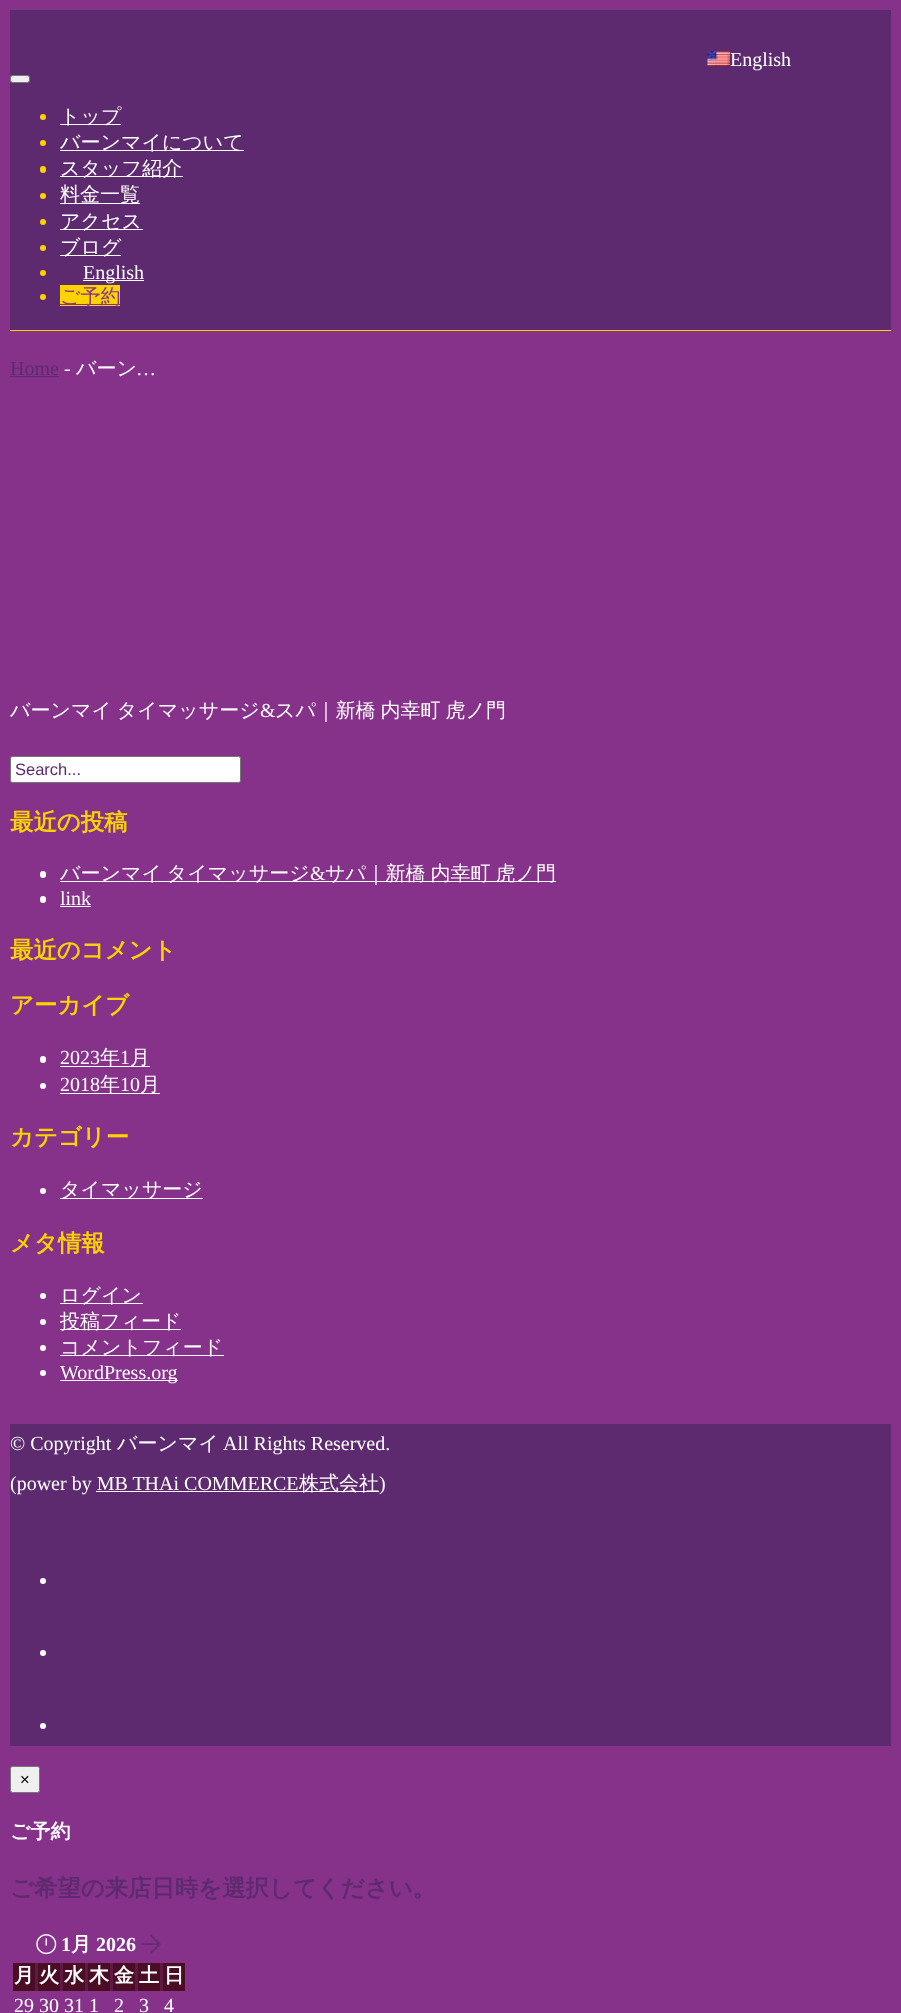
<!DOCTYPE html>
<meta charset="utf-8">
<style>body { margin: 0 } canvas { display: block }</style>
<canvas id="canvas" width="901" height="2013"></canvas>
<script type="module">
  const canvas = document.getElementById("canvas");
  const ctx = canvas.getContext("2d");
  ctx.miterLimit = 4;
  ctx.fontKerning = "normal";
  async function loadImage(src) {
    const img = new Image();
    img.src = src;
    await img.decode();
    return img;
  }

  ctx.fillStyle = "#86328a";
  ctx.fillRect(0, 0, 901, 2013);
  ctx.fillStyle = "#5d2a6f";
  ctx.fillRect(10, 10, 881, 320);
  ctx.fillStyle = "#fcd200";
  ctx.fillRect(10, 330, 881, 1);
  ctx.drawImage(await loadImage("img1.png"), 707, 51, 23, 16);
  ctx.font = "20px Liberation Serif";
  ctx.fillStyle = "#ffffff";
  ctx.fillText("English", 730, 66);
  ctx.fillStyle = "#efefef";
  ctx.beginPath();
  ctx.roundRect(10.5, 75.5, 19, 7, 2);
  ctx.fill();
  ctx.strokeStyle = "#767676";
  ctx.stroke();
  ctx.fillStyle = "#fcd200";
  ctx.beginPath();
  ctx.arc(43, 117, 3, 0, Math.PI * 2);
  ctx.fill();
  ctx.fillStyle = "#ffffff";
  ctx.fillRect(60, 124, 61, 1);
  ctx.font = "500 20px WenQuanYi Zen Hei";
  ctx.fillText("トップ", 60, 123);
  ctx.fillStyle = "#fcd200";
  ctx.beginPath();
  ctx.arc(43, 143, 3, 0, Math.PI * 2);
  ctx.fill();
  ctx.fillStyle = "#ffffff";
  ctx.fillRect(60, 150, 184, 1);
  ctx.fillText("バーンマイについて", 60, 149);
  ctx.fillStyle = "#fcd200";
  ctx.beginPath();
  ctx.roundRect(40, 166, 6, 7, 3);
  ctx.fill();
  ctx.fillStyle = "#ffffff";
  ctx.fillRect(60, 176, 123, 1);
  ctx.fillText("スタッフ紹介", 60, 175);
  ctx.fillStyle = "#fcd200";
  ctx.beginPath();
  ctx.arc(43, 196, 3, 0, Math.PI * 2);
  ctx.fill();
  ctx.fillStyle = "#ffffff";
  ctx.fillRect(60, 203, 80, 1);
  ctx.fillText("料金一覧", 60, 201);
  ctx.fillStyle = "#fcd200";
  ctx.beginPath();
  ctx.arc(43, 222, 3, 0, Math.PI * 2);
  ctx.fill();
  ctx.fillStyle = "#ffffff";
  ctx.fillRect(60, 229, 83, 1);
  ctx.fillText("アクセス", 60, 228);
  ctx.fillStyle = "#fcd200";
  ctx.beginPath();
  ctx.arc(43, 248, 3, 0, Math.PI * 2);
  ctx.fill();
  ctx.fillStyle = "#ffffff";
  ctx.fillRect(60, 255, 61, 1);
  ctx.fillText("ブログ", 60, 254);
  ctx.fillStyle = "#fcd200";
  ctx.beginPath();
  ctx.arc(43, 273, 3, 0, Math.PI * 2);
  ctx.fill();
  ctx.fillStyle = "#ffffff";
  ctx.fillRect(83, 280, 61, 1);
  ctx.font = "20px Liberation Serif";
  ctx.fillText("English", 83, 279);
  ctx.fillStyle = "#fcd200";
  ctx.beginPath();
  ctx.arc(43, 297, 3, 0, Math.PI * 2);
  ctx.fill();
  ctx.fillRect(60, 285, 60, 21);
  ctx.fillStyle = "#86328a";
  ctx.fillRect(60, 304, 60, 1);
  ctx.font = "500 20px WenQuanYi Zen Hei";
  ctx.fillText("ご予約", 60, 303);
  ctx.font = "20px Liberation Serif";
  ctx.fillStyle = "#5d2a6f";
  ctx.fillText("Home", 10, 375);
  ctx.fillRect(10, 376, 49, 1);
  ctx.fillStyle = "#ffffff";
  ctx.fillText("-", 64, 375);
  ctx.font = "500 20px WenQuanYi Zen Hei";
  ctx.fillText("バーン", 76, 375);
  ctx.font = "20px Liberation Serif";
  ctx.fillText("…", 136, 375);
  ctx.wordSpacing = "-1px";
  ctx.font = "500 20px WenQuanYi Zen Hei";
  ctx.fillText("バーンマイ タイマッサージ", 10, 717);
  ctx.wordSpacing = "0px";
  ctx.font = "20px Liberation Serif";
  ctx.fillText("&", 260, 717);
  ctx.wordSpacing = "-1px";
  ctx.font = "500 20px WenQuanYi Zen Hei";
  ctx.fillText("スパ｜新橋 内幸町 虎ノ門", 275, 717);
  ctx.beginPath();
  ctx.roundRect(10.5, 756.5, 230, 26, 2);
  ctx.fill();
  ctx.stroke();
  ctx.wordSpacing = "0px";
  ctx.font = "16.5px Liberation Sans";
  ctx.fillStyle = "#5d2a6f";
  ctx.fillText("Search...", 15, 775);
  ctx.font = "bold 23.4px WenQuanYi Zen Hei";
  ctx.fillStyle = "#fcd200";
  ctx.fillText("最近の投稿", 10, 830);
  ctx.fillStyle = "#ffffff";
  ctx.beginPath();
  ctx.roundRect(40, 871, 6, 7, 3);
  ctx.fill();
  ctx.fillRect(60, 881, 496, 1);
  ctx.wordSpacing = "-1px";
  ctx.font = "500 20px WenQuanYi Zen Hei";
  ctx.fillText("バーンマイ タイマッサージ", 60, 880);
  ctx.wordSpacing = "0px";
  ctx.font = "20px Liberation Serif";
  ctx.fillText("&", 310, 880);
  ctx.wordSpacing = "-1px";
  ctx.font = "500 20px WenQuanYi Zen Hei";
  ctx.fillText("サパ｜新橋 内幸町 虎ノ門", 325, 880);
  ctx.beginPath();
  ctx.roundRect(40, 896, 6, 7, 3);
  ctx.fill();
  ctx.wordSpacing = "0px";
  ctx.font = "20px Liberation Serif";
  ctx.fillText("link", 60, 905);
  ctx.fillRect(60, 906, 31, 1);
  ctx.font = "bold 23.4px WenQuanYi Zen Hei";
  ctx.fillStyle = "#fcd200";
  ctx.fillText("最近のコメント", 10, 958);
  ctx.fillText("アーカイブ", 10, 1013);
  ctx.fillStyle = "#ffffff";
  ctx.beginPath();
  ctx.roundRect(40, 1056, 6, 7, 3);
  ctx.fill();
  ctx.font = "20px Liberation Serif";
  ctx.fillText("2023", 60, 1064);
  ctx.fillRect(60, 1066, 90, 1);
  ctx.font = "500 20px WenQuanYi Zen Hei";
  ctx.fillText("年", 100, 1064);
  ctx.font = "20px Liberation Serif";
  ctx.fillText("1", 120, 1064);
  ctx.font = "500 20px WenQuanYi Zen Hei";
  ctx.fillText("月", 130, 1064);
  ctx.beginPath();
  ctx.arc(43, 1086, 3, 0, Math.PI * 2);
  ctx.fill();
  ctx.font = "20px Liberation Serif";
  ctx.fillText("2018", 60, 1091);
  ctx.fillRect(60, 1093, 100, 1);
  ctx.font = "500 20px WenQuanYi Zen Hei";
  ctx.fillText("年", 100, 1091);
  ctx.font = "20px Liberation Serif";
  ctx.fillText("10", 120, 1091);
  ctx.font = "500 20px WenQuanYi Zen Hei";
  ctx.fillText("月", 140, 1091);
  ctx.font = "bold 23.4px WenQuanYi Zen Hei";
  ctx.fillStyle = "#fcd200";
  ctx.fillText("カテゴリー", 10, 1145);
  ctx.fillStyle = "#ffffff";
  ctx.beginPath();
  ctx.arc(43, 1191, 3, 0, Math.PI * 2);
  ctx.fill();
  ctx.fillRect(60, 1198, 143, 1);
  ctx.font = "500 20px WenQuanYi Zen Hei";
  ctx.fillText("タイマッサージ", 60, 1196);
  ctx.font = "bold 23.4px WenQuanYi Zen Hei";
  ctx.fillStyle = "#fcd200";
  ctx.fillText("メタ情報", 10, 1251);
  ctx.fillStyle = "#ffffff";
  ctx.beginPath();
  ctx.arc(43, 1296, 3, 0, Math.PI * 2);
  ctx.fill();
  ctx.fillRect(60, 1303, 83, 1);
  ctx.font = "500 20px WenQuanYi Zen Hei";
  ctx.fillText("ログイン", 60, 1302);
  ctx.beginPath();
  ctx.arc(43, 1322, 3, 0, Math.PI * 2);
  ctx.fill();
  ctx.fillRect(60, 1329, 121, 1);
  ctx.fillText("投稿フィード", 60, 1328);
  ctx.beginPath();
  ctx.arc(43, 1348, 3, 0, Math.PI * 2);
  ctx.fill();
  ctx.fillRect(60, 1355, 164, 1);
  ctx.fillText("コメントフィード", 60, 1354);
  ctx.beginPath();
  ctx.arc(43, 1373, 3, 0, Math.PI * 2);
  ctx.fill();
  ctx.fillRect(60, 1380, 118, 1);
  ctx.font = "20px Liberation Serif";
  ctx.fillText("WordPress.org", 60, 1379);
  ctx.fillStyle = "#5d2a6f";
  ctx.fillRect(10, 1424, 881, 322);
  ctx.fillStyle = "#ffffff";
  ctx.fillText("© Copyright", 10, 1450);
  ctx.font = "500 20px WenQuanYi Zen Hei";
  ctx.fillText("バーンマイ", 117, 1450);
  ctx.font = "20px Liberation Serif";
  ctx.fillText("All Rights Reserved.", 223, 1450);
  ctx.fillText("(power by MB THAi COMMERCE", 10, 1490);
  ctx.fillRect(96, 1491, 283, 1);
  ctx.font = "500 20px WenQuanYi Zen Hei";
  ctx.fillText("株式会社", 299, 1490);
  ctx.font = "20px Liberation Serif";
  ctx.fillText(")", 379, 1490);
  ctx.beginPath();
  ctx.arc(43, 1581, 3, 0, Math.PI * 2);
  ctx.fill();
  ctx.beginPath();
  ctx.arc(43, 1653, 3, 0, Math.PI * 2);
  ctx.fill();
  ctx.beginPath();
  ctx.arc(43, 1726, 3, 0, Math.PI * 2);
  ctx.fill();
  ctx.fillStyle = "#efefef";
  ctx.beginPath();
  ctx.roundRect(10.5, 1766.5, 29, 26, 2);
  ctx.fill();
  ctx.stroke();
  ctx.font = "16.5px Liberation Sans";
  ctx.fillStyle = "#000000";
  ctx.fillText("×", 20, 1785);
  ctx.font = "bold 20px WenQuanYi Zen Hei";
  ctx.fillStyle = "#ffffff";
  ctx.fillText("ご予約", 10, 1838);
  ctx.font = "bold 23.4px WenQuanYi Zen Hei";
  ctx.fillStyle = "#5d2a6f";
  ctx.fillText("ご希望の来店日時を選択してください。", 10, 1896);
  ctx.drawImage(await loadImage("img2.png"), 36, 1934, 21, 21);
  ctx.font = "bold 20px Liberation Serif";
  ctx.fillStyle = "#ffffff";
  ctx.fillText("1", 61, 1951);
  ctx.font = "bold 20px WenQuanYi Zen Hei";
  ctx.fillText("月", 71, 1951);
  ctx.font = "bold 20px Liberation Serif";
  ctx.fillText("2026", 96, 1951);
  ctx.drawImage(await loadImage("img3.png"), 141, 1934, 20, 20);
  ctx.fillStyle = "#5e1945";
  ctx.fillRect(35, 1963, 128, 28);
  ctx.fillStyle = "#4a0d23";
  ctx.fillRect(13, 1963, 22, 28);
  ctx.font = "bold 20px WenQuanYi Zen Hei";
  ctx.fillStyle = "#ffffff";
  ctx.fillText("月", 14, 1982);
  ctx.fillStyle = "#4a0d23";
  ctx.fillRect(38, 1963, 22, 28);
  ctx.fillStyle = "#ffffff";
  ctx.fillText("火", 39, 1982);
  ctx.fillStyle = "#4a0d23";
  ctx.fillRect(63, 1963, 22, 28);
  ctx.fillStyle = "#ffffff";
  ctx.fillText("水", 64, 1982);
  ctx.fillStyle = "#4a0d23";
  ctx.fillRect(88, 1963, 22, 28);
  ctx.fillStyle = "#ffffff";
  ctx.fillText("木", 89, 1982);
  ctx.fillStyle = "#4a0d23";
  ctx.fillRect(113, 1963, 22, 28);
  ctx.fillStyle = "#ffffff";
  ctx.fillText("金", 114, 1982);
  ctx.fillStyle = "#4a0d23";
  ctx.fillRect(138, 1963, 22, 28);
  ctx.fillStyle = "#ffffff";
  ctx.fillText("土", 139, 1982);
  ctx.fillStyle = "#4a0d23";
  ctx.fillRect(163, 1963, 22, 28);
  ctx.fillStyle = "#ffffff";
  ctx.fillText("日", 164, 1982);
  ctx.font = "20px Liberation Serif";
  ctx.fillText("29 30 31 1", 14, 2012);
  ctx.fillText("2", 114, 2012);
  ctx.fillText("3", 139, 2012);
  ctx.fillText("4", 164, 2012);
</script>
